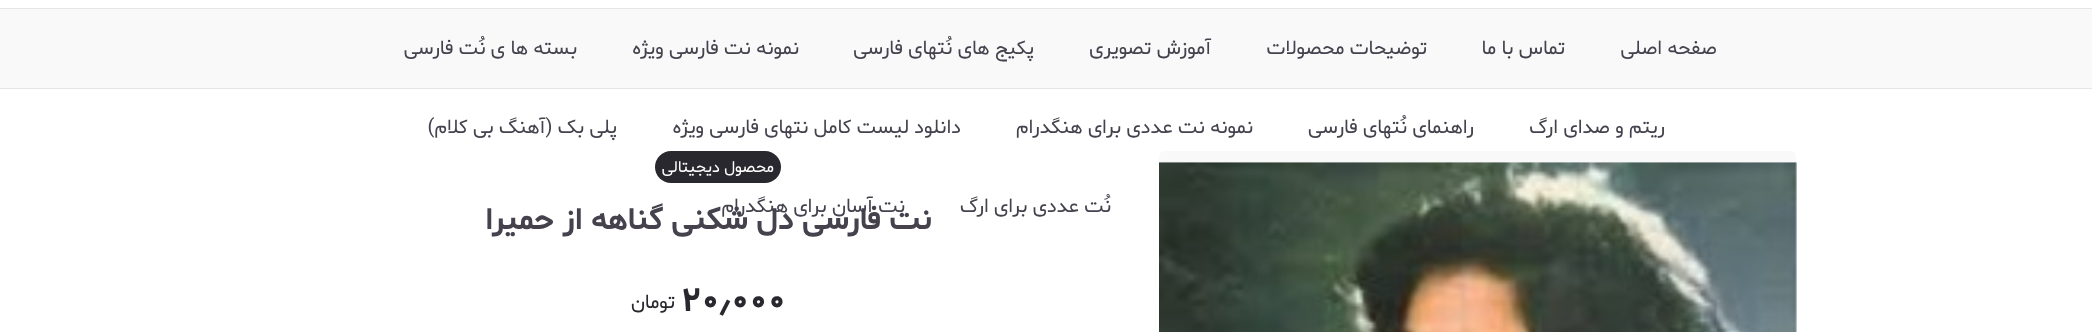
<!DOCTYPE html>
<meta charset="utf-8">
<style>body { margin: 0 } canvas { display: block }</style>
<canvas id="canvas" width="2092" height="332"></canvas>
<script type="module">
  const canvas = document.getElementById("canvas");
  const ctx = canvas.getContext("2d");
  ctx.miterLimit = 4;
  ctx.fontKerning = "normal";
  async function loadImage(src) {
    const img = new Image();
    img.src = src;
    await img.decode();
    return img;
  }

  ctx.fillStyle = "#ffffff";
  ctx.fillRect(0, 0, 2092, 332);
  ctx.fillStyle = "#f9f9f9";
  ctx.fillRect(0, 9, 2092, 79);
  ctx.fillStyle = "#e5e5e5";
  ctx.fillRect(0, 8, 2092, 1);
  ctx.fillRect(0, 88, 2092, 1);
  ctx.direction = "rtl";
  ctx.font = "20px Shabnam";
  ctx.fillStyle = "#45424e";
  ctx.fillText("صفحه اصلی", 1717, 54);
  ctx.fillText("تماس با ما", 1565, 54);
  ctx.fillText("توضیحات محصولات", 1427, 54);
  ctx.fillText("آموزش تصویری", 1211, 54);
  ctx.fillText("پکیج های نُتهای فارسی", 1034, 54);
  ctx.fillText("نمونه نت فارسی ویژه", 799, 54);
  ctx.fillText("بسته ها ی نُت فارسی", 577, 54);
  ctx.fillText("ریتم و صدای ارگ", 1665, 133);
  ctx.fillText("راهنمای نُتهای فارسی", 1474, 133);
  ctx.fillText("نمونه نت عددی برای هنگدرام", 1253, 133);
  ctx.fillText("دانلود لیست کامل نتهای فارسی ویژه", 961, 133);
  ctx.fillText("پلی بک (آهنگ بی کلام)", 617, 133);
  ctx.fillText("نُت عددی برای ارگ", 1111, 212);
  ctx.font = "bold 31.25px Shabnam";
  ctx.fillText("نت فارسی دل شکنی گناهه از حمیرا", 932, 229);
  ctx.font = "20px Shabnam";
  ctx.fillText("نت آسان برای هنگدرام", 905, 212);
  ctx.fillStyle = "#f9f9f9";
  ctx.beginPath();
  ctx.roundRect(1159, 151, 637, 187, 6);
  ctx.fill();
  ctx.drawImage(await loadImage("img1.png"), 1159, 162, 638, 170);
  ctx.fillStyle = "#2a282f";
  ctx.beginPath();
  ctx.roundRect(655, 151, 126, 32, 16);
  ctx.fill();
  ctx.font = "16.25px Shabnam";
  ctx.fillStyle = "#ffffff";
  ctx.fillText("محصول دیجیتالی", 774, 172);
  ctx.direction = "ltr";
  ctx.font = "bold 35px Shabnam";
  ctx.fillStyle = "#2a282f";
  ctx.fillText("۲۰٫۰۰۰", 681, 311);
  ctx.direction = "rtl";
  ctx.font = "20px Shabnam";
  ctx.fillText("تومان", 675, 308);
</script>
